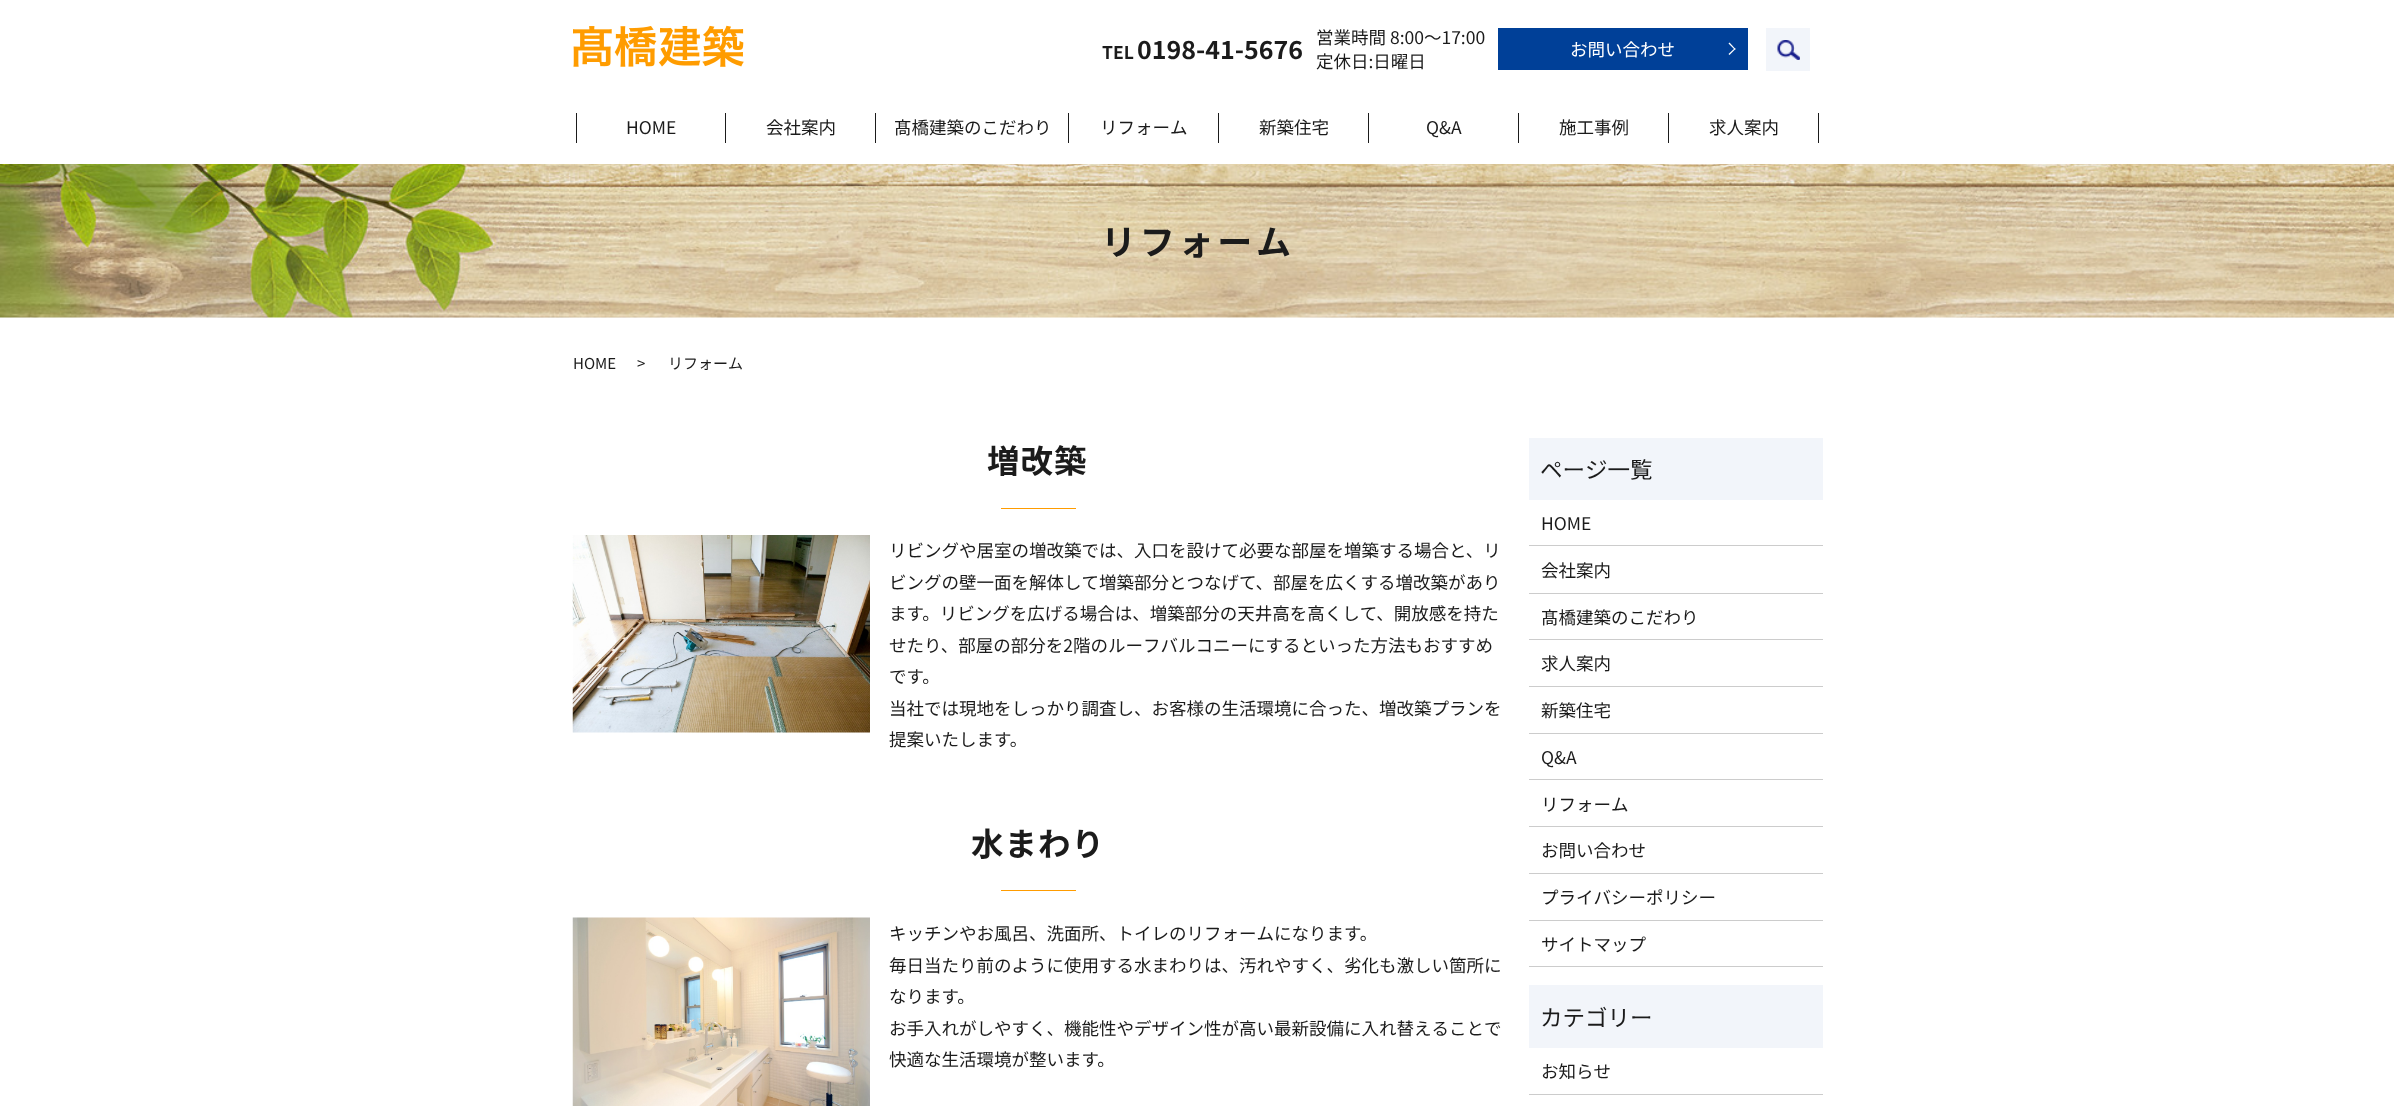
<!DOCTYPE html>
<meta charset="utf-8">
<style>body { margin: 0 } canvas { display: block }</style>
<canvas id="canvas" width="2394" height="1106"></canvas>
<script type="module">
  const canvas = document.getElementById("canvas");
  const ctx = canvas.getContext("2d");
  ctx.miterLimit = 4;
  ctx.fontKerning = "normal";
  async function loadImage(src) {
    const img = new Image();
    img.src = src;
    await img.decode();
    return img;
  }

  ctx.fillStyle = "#ffffff";
  ctx.fillRect(0, 0, 2394, 1106);
  ctx.fillStyle = "#f2f5fa";
  ctx.fillRect(1766, 28, 44, 43);
  ctx.drawImage(await loadImage("img1.png"), 573, 25, 171, 42);
  ctx.font = "bold 17.5px Noto Sans JP";
  ctx.fillStyle = "#1b1b1b";
  ctx.fillText("TEL", 1102, 59);
  ctx.font = "bold 25px Noto Sans JP";
  ctx.fillText("0198-41-5676", 1137, 59);
  ctx.font = "17.5px Noto Sans JP";
  ctx.fillText("営業時間 8:00～17:00", 1316, 44);
  ctx.fillText("定休日:日曜日", 1316, 68);
  ctx.fillStyle = "#004098";
  ctx.fillRect(1498, 28, 250, 42);
  ctx.fillStyle = "#ffffff";
  ctx.fillText("お問い合わせ", 1570, 56);
  ctx.beginPath();
  ctx.moveTo(1729.5, 42.5);
  ctx.lineTo(1735.5, 49);
  ctx.lineTo(1735, 50);
  ctx.lineTo(1728.5, 43.5);
  ctx.closePath();
  ctx.fill();
  ctx.beginPath();
  ctx.moveTo(1735, 48);
  ctx.lineTo(1735.5, 49);
  ctx.lineTo(1729.5, 55);
  ctx.lineTo(1728.5, 54);
  ctx.closePath();
  ctx.fill();
  ctx.drawImage(await loadImage("img2.png"), 1777, 40, 23, 20);
  ctx.fillStyle = "#1b1b1b";
  ctx.fillRect(576, 113, 1, 30);
  ctx.fillText("HOME", 626, 134);
  ctx.fillRect(725, 113, 1, 30);
  ctx.fillText("会社案内", 766, 134);
  ctx.fillRect(875, 113, 1, 30);
  ctx.fillText("髙橋建築のこだわり", 894, 134);
  ctx.fillRect(1068, 113, 1, 30);
  ctx.fillText("リフォーム", 1100, 134);
  ctx.fillRect(1218, 113, 1, 30);
  ctx.fillText("新築住宅", 1259, 134);
  ctx.fillRect(1368, 113, 1, 30);
  ctx.fillText("Q&A", 1426, 134);
  ctx.fillRect(1518, 113, 1, 30);
  ctx.fillText("施工事例", 1559, 134);
  ctx.fillRect(1668, 113, 1, 30);
  ctx.fillText("求人案内", 1709, 134);
  ctx.fillRect(1818, 113, 1, 30);
  ctx.drawImage(await loadImage("img3.png"), 0, 164, 2394, 154);
  ctx.letterSpacing = "3.75px";
  ctx.font = "bold 35px Noto Sans JP";
  ctx.fillText("リフォーム", 1101, 255);
  ctx.letterSpacing = "0px";
  ctx.font = "15px Noto Sans JP";
  ctx.fillText("HOME", 573, 369);
  ctx.fillText(">", 637, 369);
  ctx.fillText("リフォーム", 668, 369);
  ctx.letterSpacing = "1px";
  ctx.font = "bold 32.5px Noto Sans JP";
  ctx.fillText("増改築", 987, 473);
  ctx.fillStyle = "#ff9c00";
  ctx.fillRect(1001, 508, 75, 1);
  ctx.drawImage(await loadImage("img4.png"), 572, 535, 298, 198);
  ctx.letterSpacing = "0px";
  ctx.font = "17.5px Noto Sans JP";
  ctx.fillStyle = "#1b1b1b";
  ctx.fillText("リビングや居室の増改築では、入口を設けて必要な部屋を増築する場合と、リ", 889, 557);
  ctx.fillText("ビングの壁一面を解体して増築部分とつなげて、部屋を広くする増改築があり", 889, 589);
  ctx.fillText("ます。リビングを広げる場合は、増築部分の天井高を高くして、開放感を持た", 889, 620);
  ctx.fillText("せたり、部屋の部分を2階のルーフバルコニーにするといった方法もおすすめ", 889, 652);
  ctx.fillText("です。", 889, 683);
  ctx.fillText("当社では現地をしっかり調査し、お客様の生活環境に合った、増改築プランを", 889, 715);
  ctx.fillText("提案いたします。", 889, 746);
  ctx.letterSpacing = "1px";
  ctx.font = "bold 32.5px Noto Sans JP";
  ctx.fillText("水まわり", 971, 856);
  ctx.fillStyle = "#ff9c00";
  ctx.fillRect(1001, 890, 75, 1);
  ctx.drawImage(await loadImage("img5.png"), 572, 917, 298, 189);
  ctx.letterSpacing = "0px";
  ctx.font = "17.5px Noto Sans JP";
  ctx.fillStyle = "#1b1b1b";
  ctx.fillText("キッチンやお風呂、洗面所、トイレのリフォームになります。", 889, 940);
  ctx.fillText("毎日当たり前のように使用する水まわりは、汚れやすく、劣化も激しい箇所に", 889, 972);
  ctx.fillText("なります。", 889, 1003);
  ctx.fillText("お手入れがしやすく、機能性やデザイン性が高い最新設備に入れ替えることで", 889, 1035);
  ctx.fillText("快適な生活環境が整います。", 889, 1066);
  ctx.fillStyle = "#f2f5fa";
  ctx.fillRect(1529, 438, 294, 62);
  ctx.font = "22.5px Noto Sans JP";
  ctx.fillStyle = "#1b1b1b";
  ctx.fillText("ページ一覧", 1540, 478);
  ctx.fillStyle = "#cccccc";
  ctx.fillRect(1529, 545, 294, 1);
  ctx.font = "17.5px Noto Sans JP";
  ctx.fillStyle = "#1b1b1b";
  ctx.fillText("HOME", 1541, 530);
  ctx.fillStyle = "#cccccc";
  ctx.fillRect(1529, 593, 294, 1);
  ctx.fillStyle = "#1b1b1b";
  ctx.fillText("会社案内", 1541, 577);
  ctx.fillStyle = "#cccccc";
  ctx.fillRect(1529, 639, 294, 1);
  ctx.fillStyle = "#1b1b1b";
  ctx.fillText("髙橋建築のこだわり", 1541, 624);
  ctx.fillStyle = "#cccccc";
  ctx.fillRect(1529, 686, 294, 1);
  ctx.fillStyle = "#1b1b1b";
  ctx.fillText("求人案内", 1541, 670);
  ctx.fillStyle = "#cccccc";
  ctx.fillRect(1529, 733, 294, 1);
  ctx.fillStyle = "#1b1b1b";
  ctx.fillText("新築住宅", 1541, 717);
  ctx.fillStyle = "#cccccc";
  ctx.fillRect(1529, 779, 294, 1);
  ctx.fillStyle = "#1b1b1b";
  ctx.fillText("Q&A", 1541, 764);
  ctx.fillStyle = "#cccccc";
  ctx.fillRect(1529, 826, 294, 1);
  ctx.fillStyle = "#1b1b1b";
  ctx.fillText("リフォーム", 1541, 811);
  ctx.fillStyle = "#cccccc";
  ctx.fillRect(1529, 873, 294, 1);
  ctx.fillStyle = "#1b1b1b";
  ctx.fillText("お問い合わせ", 1541, 857);
  ctx.fillStyle = "#cccccc";
  ctx.fillRect(1529, 920, 294, 1);
  ctx.fillStyle = "#1b1b1b";
  ctx.fillText("プライバシーポリシー", 1541, 904);
  ctx.fillStyle = "#cccccc";
  ctx.fillRect(1529, 966, 294, 1);
  ctx.fillStyle = "#1b1b1b";
  ctx.fillText("サイトマップ", 1541, 951);
  ctx.fillStyle = "#f2f5fa";
  ctx.fillRect(1529, 985, 294, 63);
  ctx.font = "22.5px Noto Sans JP";
  ctx.fillStyle = "#1b1b1b";
  ctx.fillText("カテゴリー", 1540, 1026);
  ctx.fillStyle = "#cccccc";
  ctx.fillRect(1529, 1094, 294, 1);
  ctx.font = "17.5px Noto Sans JP";
  ctx.fillStyle = "#1b1b1b";
  ctx.fillText("お知らせ", 1541, 1078);
</script>
